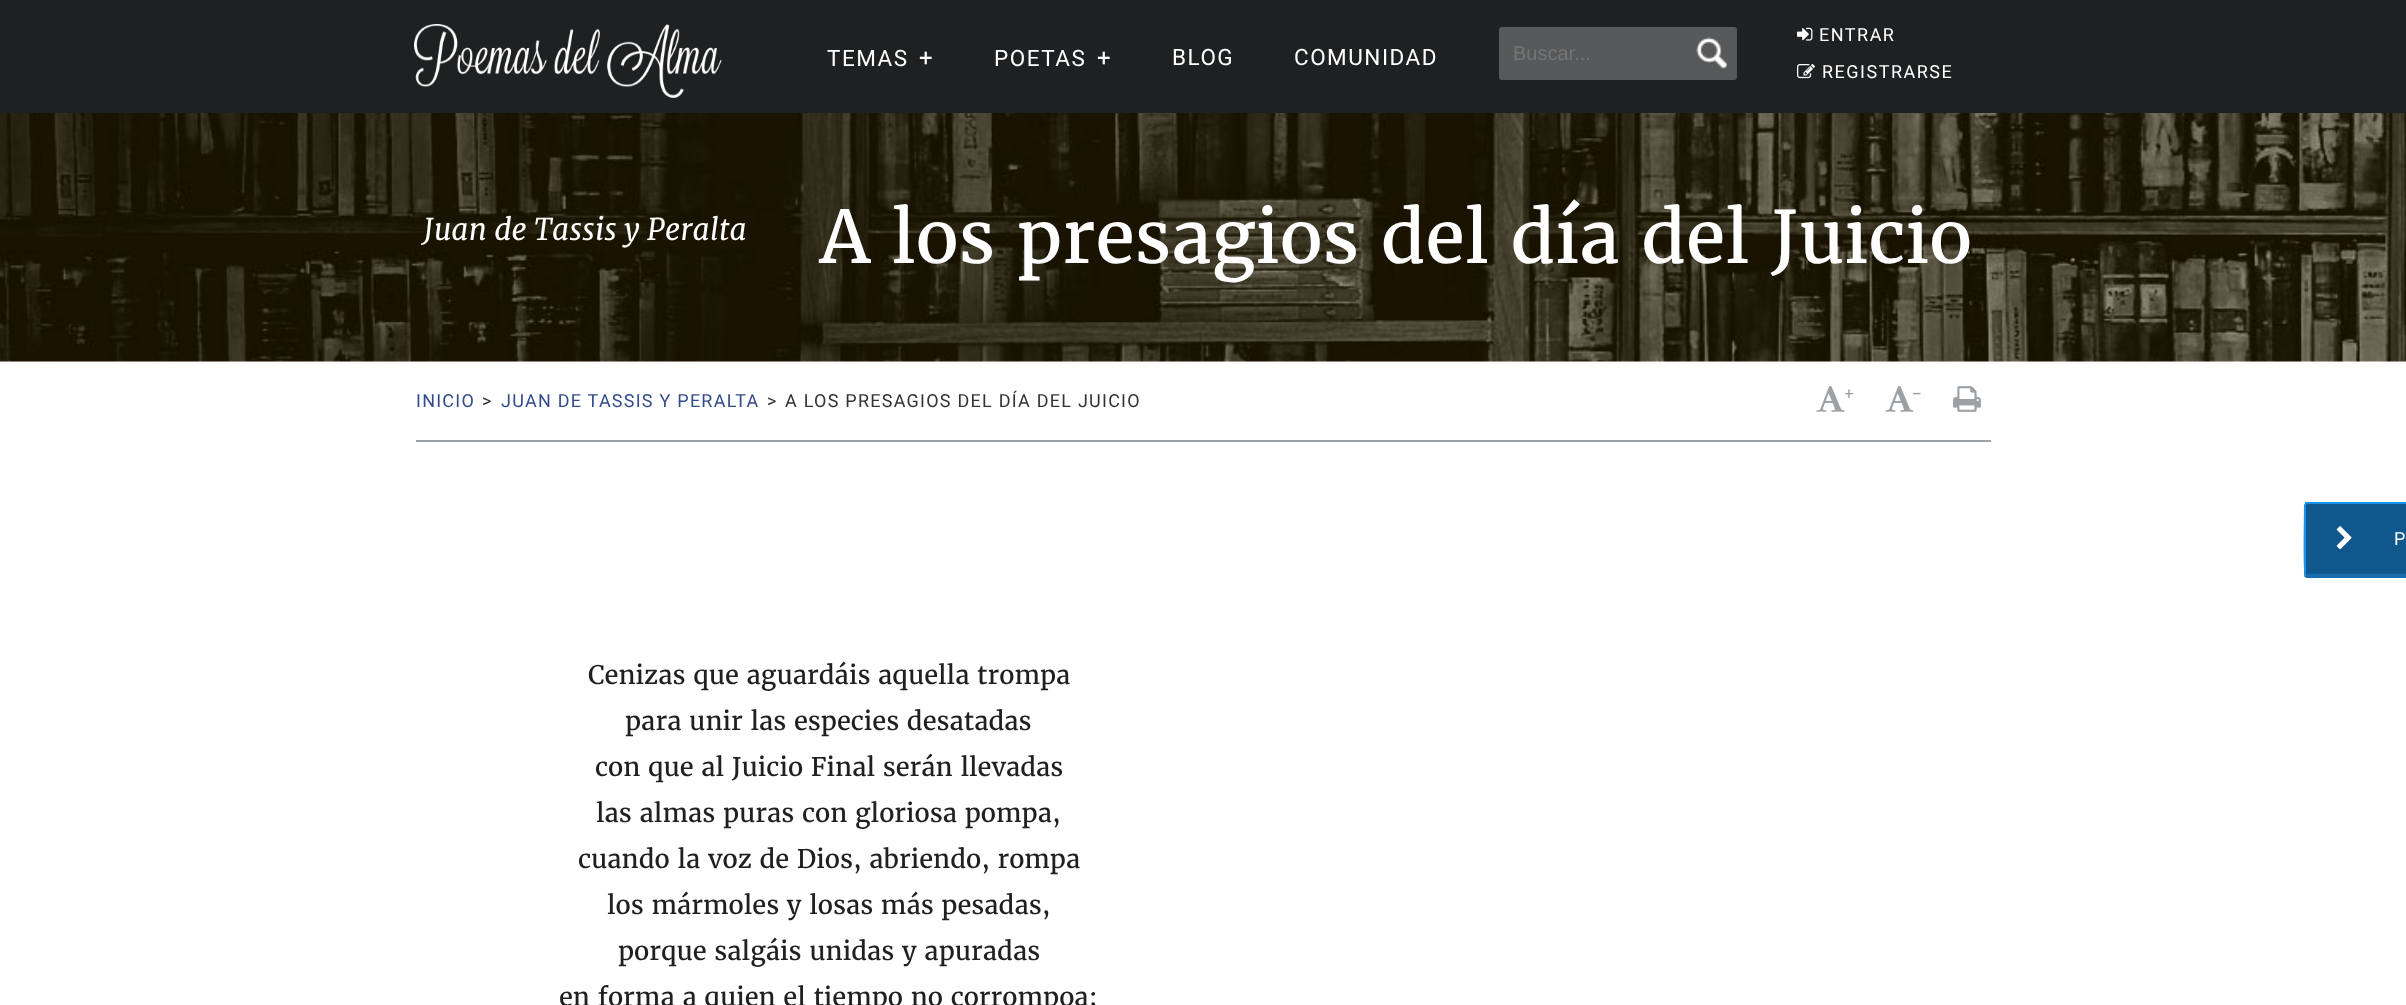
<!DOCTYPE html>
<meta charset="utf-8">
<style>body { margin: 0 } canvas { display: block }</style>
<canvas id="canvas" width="2406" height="1005"></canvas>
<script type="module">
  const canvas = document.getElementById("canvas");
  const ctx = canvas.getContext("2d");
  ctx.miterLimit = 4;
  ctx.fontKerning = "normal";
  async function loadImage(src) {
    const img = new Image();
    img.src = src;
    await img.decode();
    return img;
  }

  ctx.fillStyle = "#ffffff";
  ctx.fillRect(0, 0, 2406, 1005);
  ctx.fillStyle = "#1f2021";
  ctx.fillRect(0, 0, 2406, 113);
  ctx.drawImage(await loadImage("img1.png"), 414, 24, 308, 74);
  ctx.letterSpacing = "1.5px";
  ctx.font = "22.5px Roboto";
  ctx.fillStyle = "#ffffff";
  ctx.fillText("TEMAS", 827, 66);
  ctx.font = "24px Roboto";
  ctx.fillText("+", 919, 66);
  ctx.font = "22.5px Roboto";
  ctx.fillText("POETAS", 994, 66);
  ctx.font = "24px Roboto";
  ctx.fillText("+", 1097, 66);
  ctx.font = "22.5px Roboto";
  ctx.fillText("BLOG", 1172, 65);
  ctx.fillText("COMUNIDAD", 1294, 65);
  ctx.fillStyle = "#575859";
  ctx.beginPath();
  ctx.roundRect(1499, 27, 238, 53, 3);
  ctx.fill();
  ctx.drawImage(await loadImage("img2.png"), 1696, 37, 32, 32);
  ctx.letterSpacing = "0px";
  ctx.font = "20px Liberation Sans";
  ctx.fillStyle = "#757575";
  ctx.fillText("Buscar...", 1513, 60);
  ctx.drawImage(await loadImage("img3.png"), 1797, 27, 16, 14);
  ctx.letterSpacing = "1.5px";
  ctx.font = "18px Roboto";
  ctx.fillStyle = "#ffffff";
  ctx.fillText("ENTRAR", 1819, 41);
  ctx.drawImage(await loadImage("img4.png"), 1797, 64, 18, 15);
  ctx.fillText("REGISTRARSE", 1822, 78);
  ctx.drawImage(await loadImage("img5.png"), 0, 113, 2406, 249);
  ctx.letterSpacing = "0px";
  ctx.font = "italic 30px Merriweather";
  ctx.fillText("Juan de Tassis y Peralta", 423, 240);
  ctx.font = "72px Merriweather";
  ctx.fillText("A los presagios del día del Juicio", 820, 263);
  ctx.fillStyle = "#9ca1a6";
  ctx.fillRect(416, 440, 1575, 2);
  ctx.letterSpacing = "1.25px";
  ctx.font = "18px Roboto";
  ctx.fillStyle = "#324c8c";
  ctx.fillText("INICIO", 416, 407);
  ctx.fillStyle = "#333333";
  ctx.fillText(">", 482, 407);
  ctx.fillStyle = "#324c8c";
  ctx.fillText("JUAN DE TASSIS Y PERALTA", 501, 407);
  ctx.fillStyle = "#333333";
  ctx.fillText(">", 767, 407);
  ctx.fillText("A LOS PRESAGIOS DEL DÍA DEL JUICIO", 785, 407);
  ctx.drawImage(await loadImage("img6.png"), 1816, 386, 29, 26);
  ctx.letterSpacing = "0px";
  ctx.font = "18px Merriweather";
  ctx.fillStyle = "#9ca1a6";
  ctx.fillText("+", 1843, 399);
  ctx.drawImage(await loadImage("img6.png"), 1885, 386, 29, 26);
  ctx.fillText("-", 1911, 399);
  ctx.drawImage(await loadImage("img7.png"), 1953, 386, 28, 26);
  ctx.fillStyle = "#156caf";
  ctx.beginPath();
  ctx.moveTo(2304, 573);
  ctx.bezierCurveTo(2304, 575, 2304, 578, 2307, 578);
  ctx.lineTo(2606, 578);
  ctx.lineTo(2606, 504);
  ctx.lineTo(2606, 576);
  ctx.lineTo(2307, 576);
  ctx.bezierCurveTo(2305, 576, 2304, 575, 2304, 573);
  ctx.closePath();
  ctx.fill();
  ctx.fillStyle = "#10578e";
  ctx.beginPath();
  ctx.moveTo(2307, 503);
  ctx.lineTo(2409, 503);
  ctx.lineTo(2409, 576);
  ctx.lineTo(2307, 576);
  ctx.bezierCurveTo(2305.5, 576, 2304, 574.5, 2304, 573);
  ctx.lineTo(2304, 506);
  ctx.bezierCurveTo(2304, 504.5, 2305.5, 503, 2307, 503);
  ctx.closePath();
  ctx.fill();
  ctx.fillStyle = "#1791ef";
  ctx.beginPath();
  ctx.moveTo(2307, 504);
  ctx.lineTo(2306, 505);
  ctx.lineTo(2305, 503);
  ctx.lineTo(2305, 502);
  ctx.lineTo(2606, 502);
  ctx.lineTo(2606, 504);
  ctx.closePath();
  ctx.fill();
  ctx.fillStyle = "#156caf";
  ctx.beginPath();
  ctx.moveTo(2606, 576);
  ctx.lineTo(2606, 574);
  ctx.lineTo(2306, 574);
  ctx.lineTo(2305, 575);
  ctx.lineTo(2307, 576);
  ctx.closePath();
  ctx.fill();
  ctx.fillStyle = "#1791ef";
  ctx.beginPath();
  ctx.moveTo(2304, 506);
  ctx.bezierCurveTo(2304, 514, 2303, 574, 2305, 575);
  ctx.lineTo(2306, 574);
  ctx.lineTo(2306, 505);
  ctx.lineTo(2305, 503);
  ctx.closePath();
  ctx.fill();
  ctx.drawImage(await loadImage("img8.png"), 2336, 526, 16, 24);
  ctx.letterSpacing = "2px";
  ctx.font = "18px Roboto";
  ctx.fillStyle = "#ffffff";
  ctx.fillText("P", 2394, 545);
  ctx.letterSpacing = "0px";
  ctx.font = "25.5px Merriweather";
  ctx.fillStyle = "#1f2021";
  ctx.fillText("Cenizas que aguardáis aquella trompa", 588, 684);
  ctx.fillText("para unir las especies desatadas", 625, 730);
  ctx.fillText("con que al Juicio Final serán llevadas", 595, 776);
  ctx.fillText("las almas puras con gloriosa pompa,", 596, 822);
  ctx.fillText("cuando la voz de Dios, abriendo, rompa", 578, 868);
  ctx.fillText("los mármoles y losas más pesadas,", 607, 914);
  ctx.fillText("porque salgáis unidas y apuradas", 618, 960);
  ctx.fillText("en forma a quien el tiempo no corrompoa;", 559, 1006);
</script>
